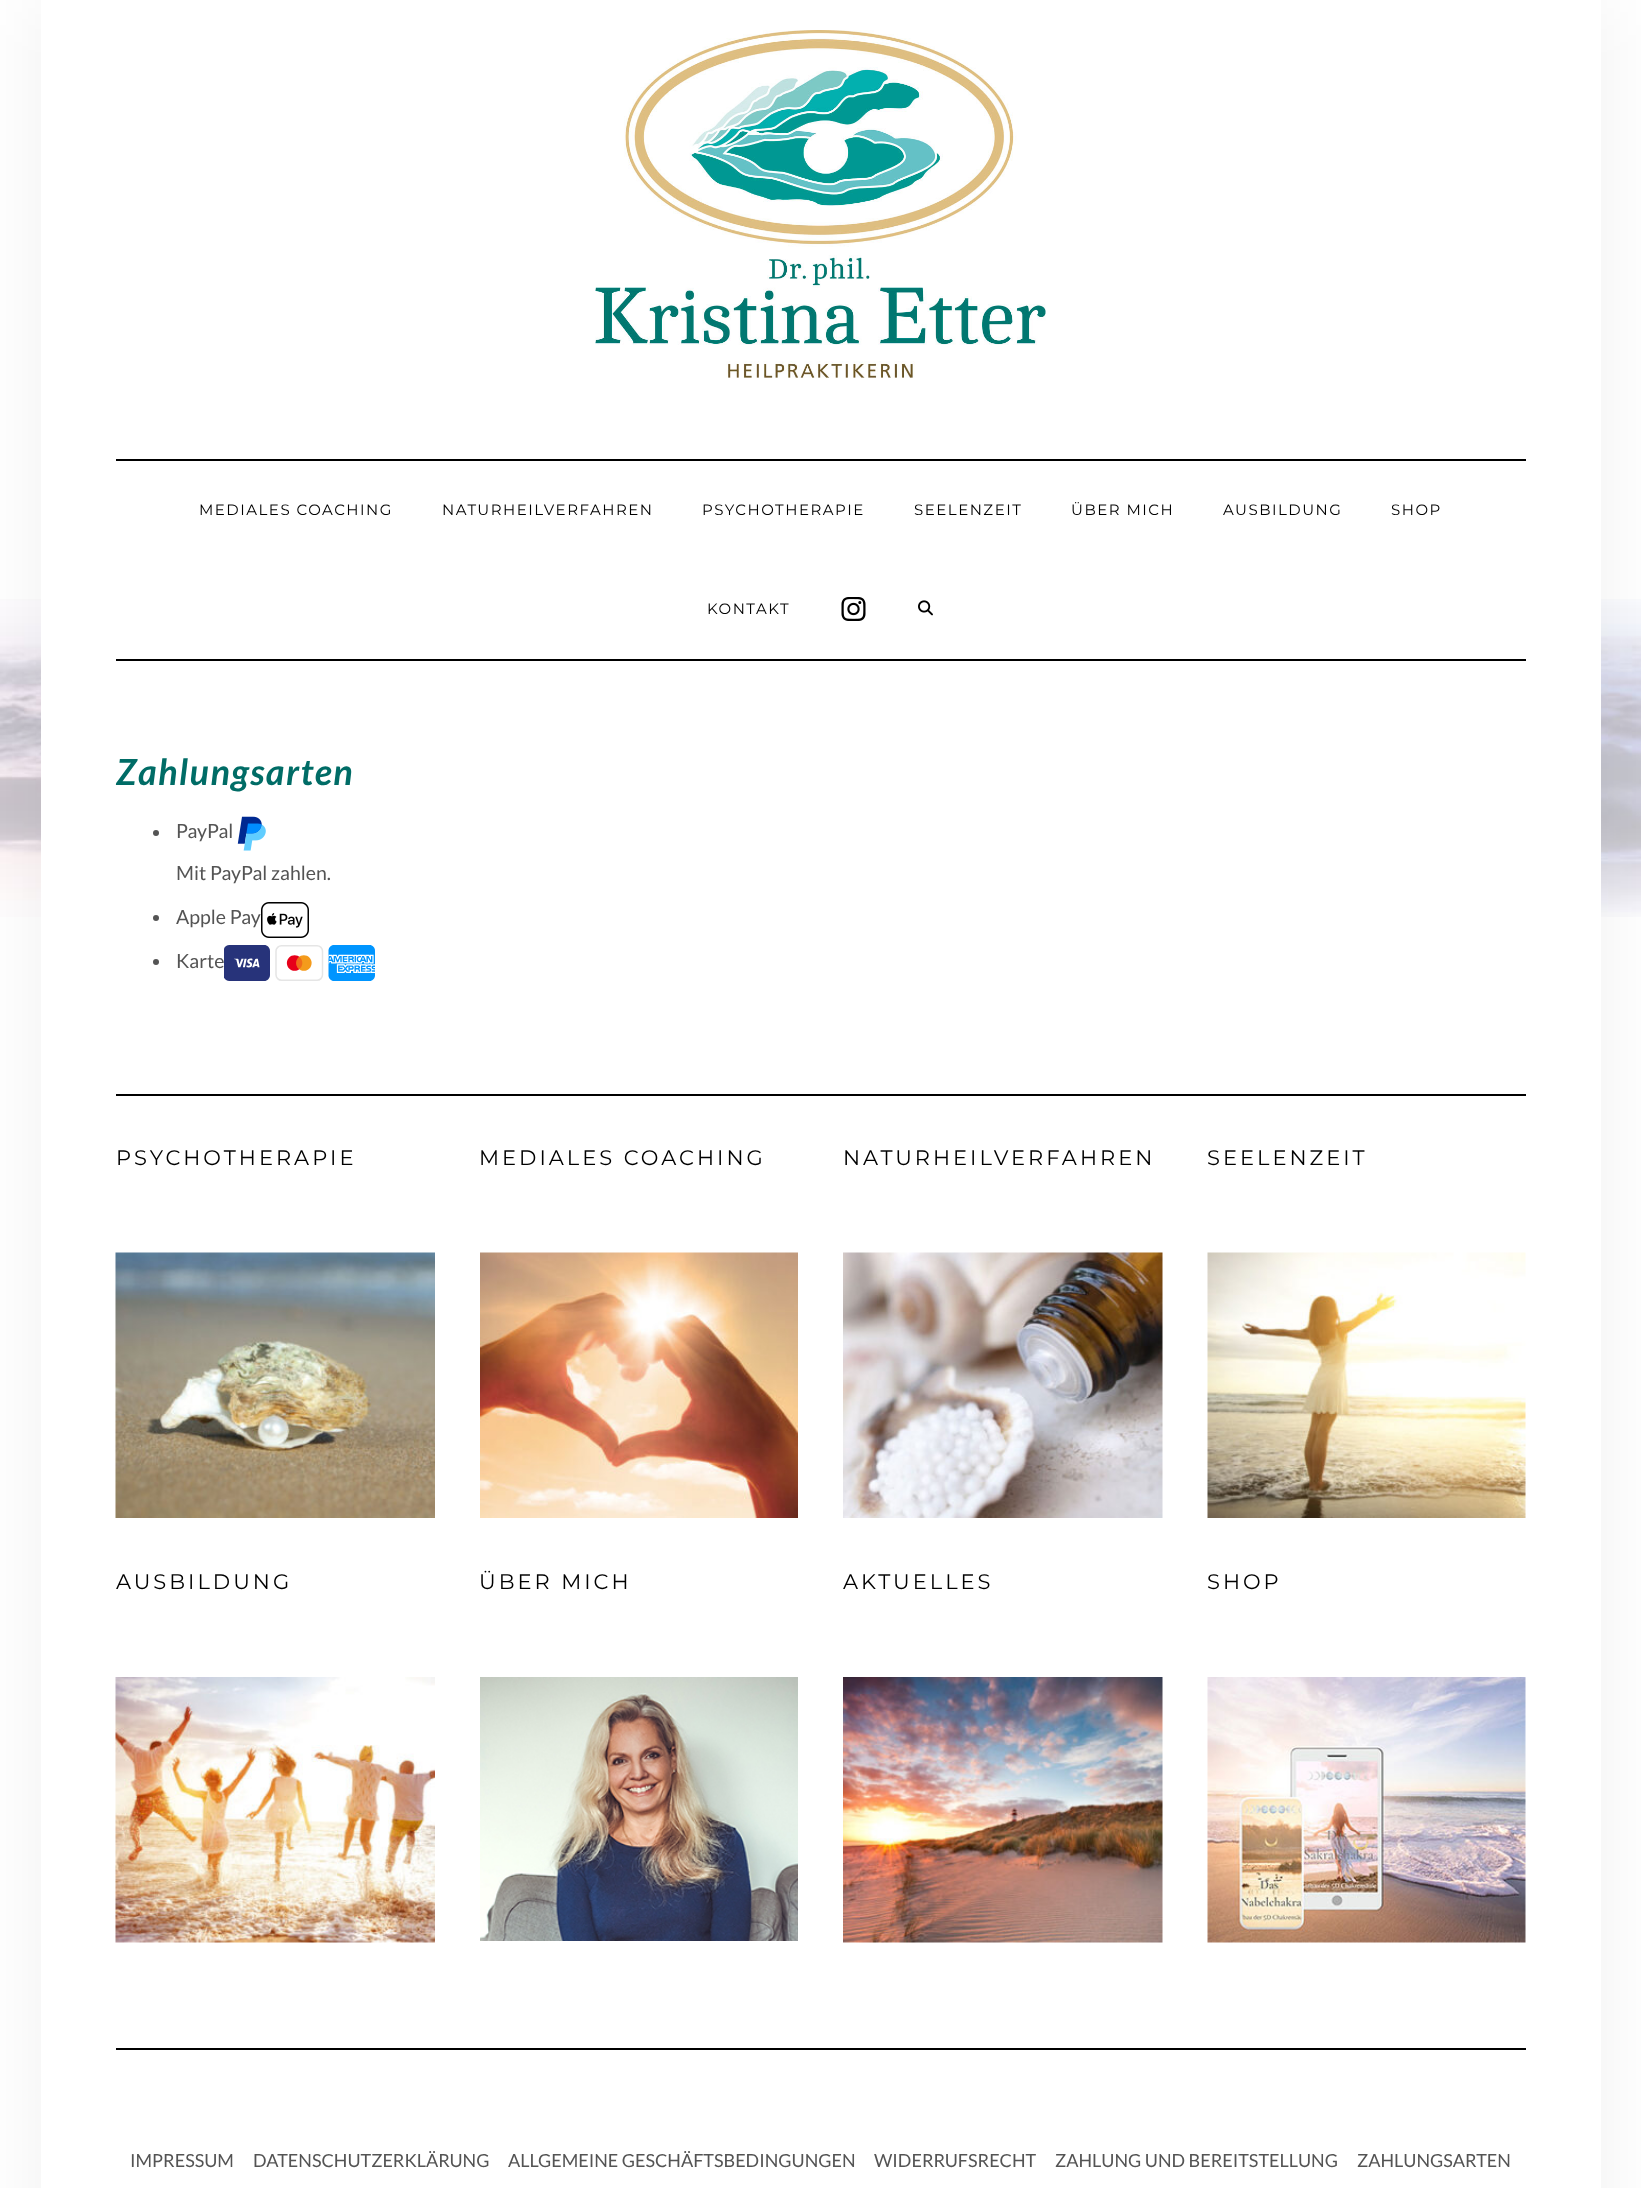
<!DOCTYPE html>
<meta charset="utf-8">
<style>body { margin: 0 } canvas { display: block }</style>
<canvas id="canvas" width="1641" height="2188"></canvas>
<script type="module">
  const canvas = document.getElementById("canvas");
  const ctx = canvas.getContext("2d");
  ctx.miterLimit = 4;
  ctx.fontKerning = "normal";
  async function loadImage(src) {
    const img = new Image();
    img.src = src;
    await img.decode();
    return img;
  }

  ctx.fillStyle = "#ffffff";
  ctx.fillRect(0, 0, 1641, 2188);
  ctx.drawImage(await loadImage("img1.png"), 0, 599, 1641, 318);
  ctx.fillStyle = "rgba(0, 0, 0, 0.06)";
  ctx.filter = "blur(37.5px)";
  ctx.beginPath();
  ctx.rect(41, 0, 1560, 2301);
  ctx.fill();
  ctx.filter = "none";
  ctx.fillStyle = "#ffffff";
  ctx.fillRect(41, 0, 1560, 2188);
  ctx.drawImage(await loadImage("img2.png"), 595, 30, 451, 348);
  ctx.fillStyle = "#000000";
  ctx.fillRect(116, 459, 1410, 2);
  ctx.fillRect(116, 659, 1410, 2);
  ctx.letterSpacing = "1.5px";
  ctx.font = "15px Montserrat";
  ctx.fillText("MEDIALES COACHING", 199, 515);
  ctx.fillText("NATURHEILVERFAHREN", 442, 515);
  ctx.fillText("PSYCHOTHERAPIE", 702, 515);
  ctx.fillText("SEELENZEIT", 914, 515);
  ctx.fillText("ÜBER MICH", 1071, 515);
  ctx.fillText("AUSBILDUNG", 1223, 515);
  ctx.fillText("SHOP", 1391, 515);
  ctx.fillText("KONTAKT", 707, 614);
  ctx.drawImage(await loadImage("img3.png"), 841, 597, 25, 24);
  ctx.drawImage(await loadImage("img4.png"), 918, 600, 15, 16);
  ctx.font = "italic bold 36px Lato";
  ctx.fillStyle = "#006c66";
  ctx.fillText("Zahlungsarten", 116, 785);
  ctx.fillStyle = "#545454";
  ctx.beginPath();
  ctx.arc(156, 833, 3, 0, Math.PI * 2);
  ctx.fill();
  ctx.letterSpacing = "0px";
  ctx.font = "19.5px Lato";
  ctx.fillText("PayPal", 176, 838);
  ctx.drawImage(await loadImage("img5.png"), 237, 816, 29, 35);
  ctx.fillText("Mit PayPal zahlen.", 176, 880);
  ctx.beginPath();
  ctx.arc(156, 918, 3, 0, Math.PI * 2);
  ctx.fill();
  ctx.fillText("Apple Pay", 176, 924);
  ctx.drawImage(await loadImage("img6.png"), 261, 902, 48, 36);
  ctx.beginPath();
  ctx.arc(156, 962, 3, 0, Math.PI * 2);
  ctx.fill();
  ctx.fillText("Karte", 176, 968);
  ctx.drawImage(await loadImage("img7.png"), 224, 945, 151, 36);
  ctx.fillStyle = "#000000";
  ctx.fillRect(116, 1094, 1410, 2);
  ctx.letterSpacing = "3px";
  ctx.font = "21px Montserrat";
  ctx.fillText("PSYCHOTHERAPIE", 116, 1165);
  ctx.drawImage(await loadImage("img8.png"), 115, 1252, 320, 266);
  ctx.fillText("AUSBILDUNG", 116, 1589);
  ctx.drawImage(await loadImage("img9.png"), 115, 1677, 320, 266);
  ctx.fillText("MEDIALES COACHING", 479, 1165);
  ctx.drawImage(await loadImage("img10.png"), 480, 1252, 318, 266);
  ctx.fillText("ÜBER MICH", 479, 1589);
  ctx.drawImage(await loadImage("img11.png"), 480, 1677, 318, 264);
  ctx.fillText("NATURHEILVERFAHREN", 843, 1165);
  ctx.drawImage(await loadImage("img12.png"), 843, 1252, 320, 266);
  ctx.fillText("AKTUELLES", 843, 1589);
  ctx.drawImage(await loadImage("img13.png"), 843, 1677, 320, 266);
  ctx.fillText("SEELENZEIT", 1207, 1165);
  ctx.drawImage(await loadImage("img14.png"), 1207, 1252, 319, 266);
  ctx.fillText("SHOP", 1207, 1589);
  ctx.drawImage(await loadImage("img15.png"), 1207, 1677, 319, 266);
  ctx.fillRect(116, 2048, 1410, 2);
  ctx.letterSpacing = "0px";
  ctx.font = "18px Lato";
  ctx.fillStyle = "#545454";
  ctx.fillText("IMPRESSUM", 130, 2167);
  ctx.fillText("DATENSCHUTZERKLÄRUNG", 253, 2167);
  ctx.fillText("ALLGEMEINE GESCHÄFTSBEDINGUNGEN", 508, 2167);
  ctx.fillText("WIDERRUFSRECHT", 874, 2167);
  ctx.fillText("ZAHLUNG UND BEREITSTELLUNG", 1055, 2167);
  ctx.fillText("ZAHLUNGSARTEN", 1357, 2167);
</script>
